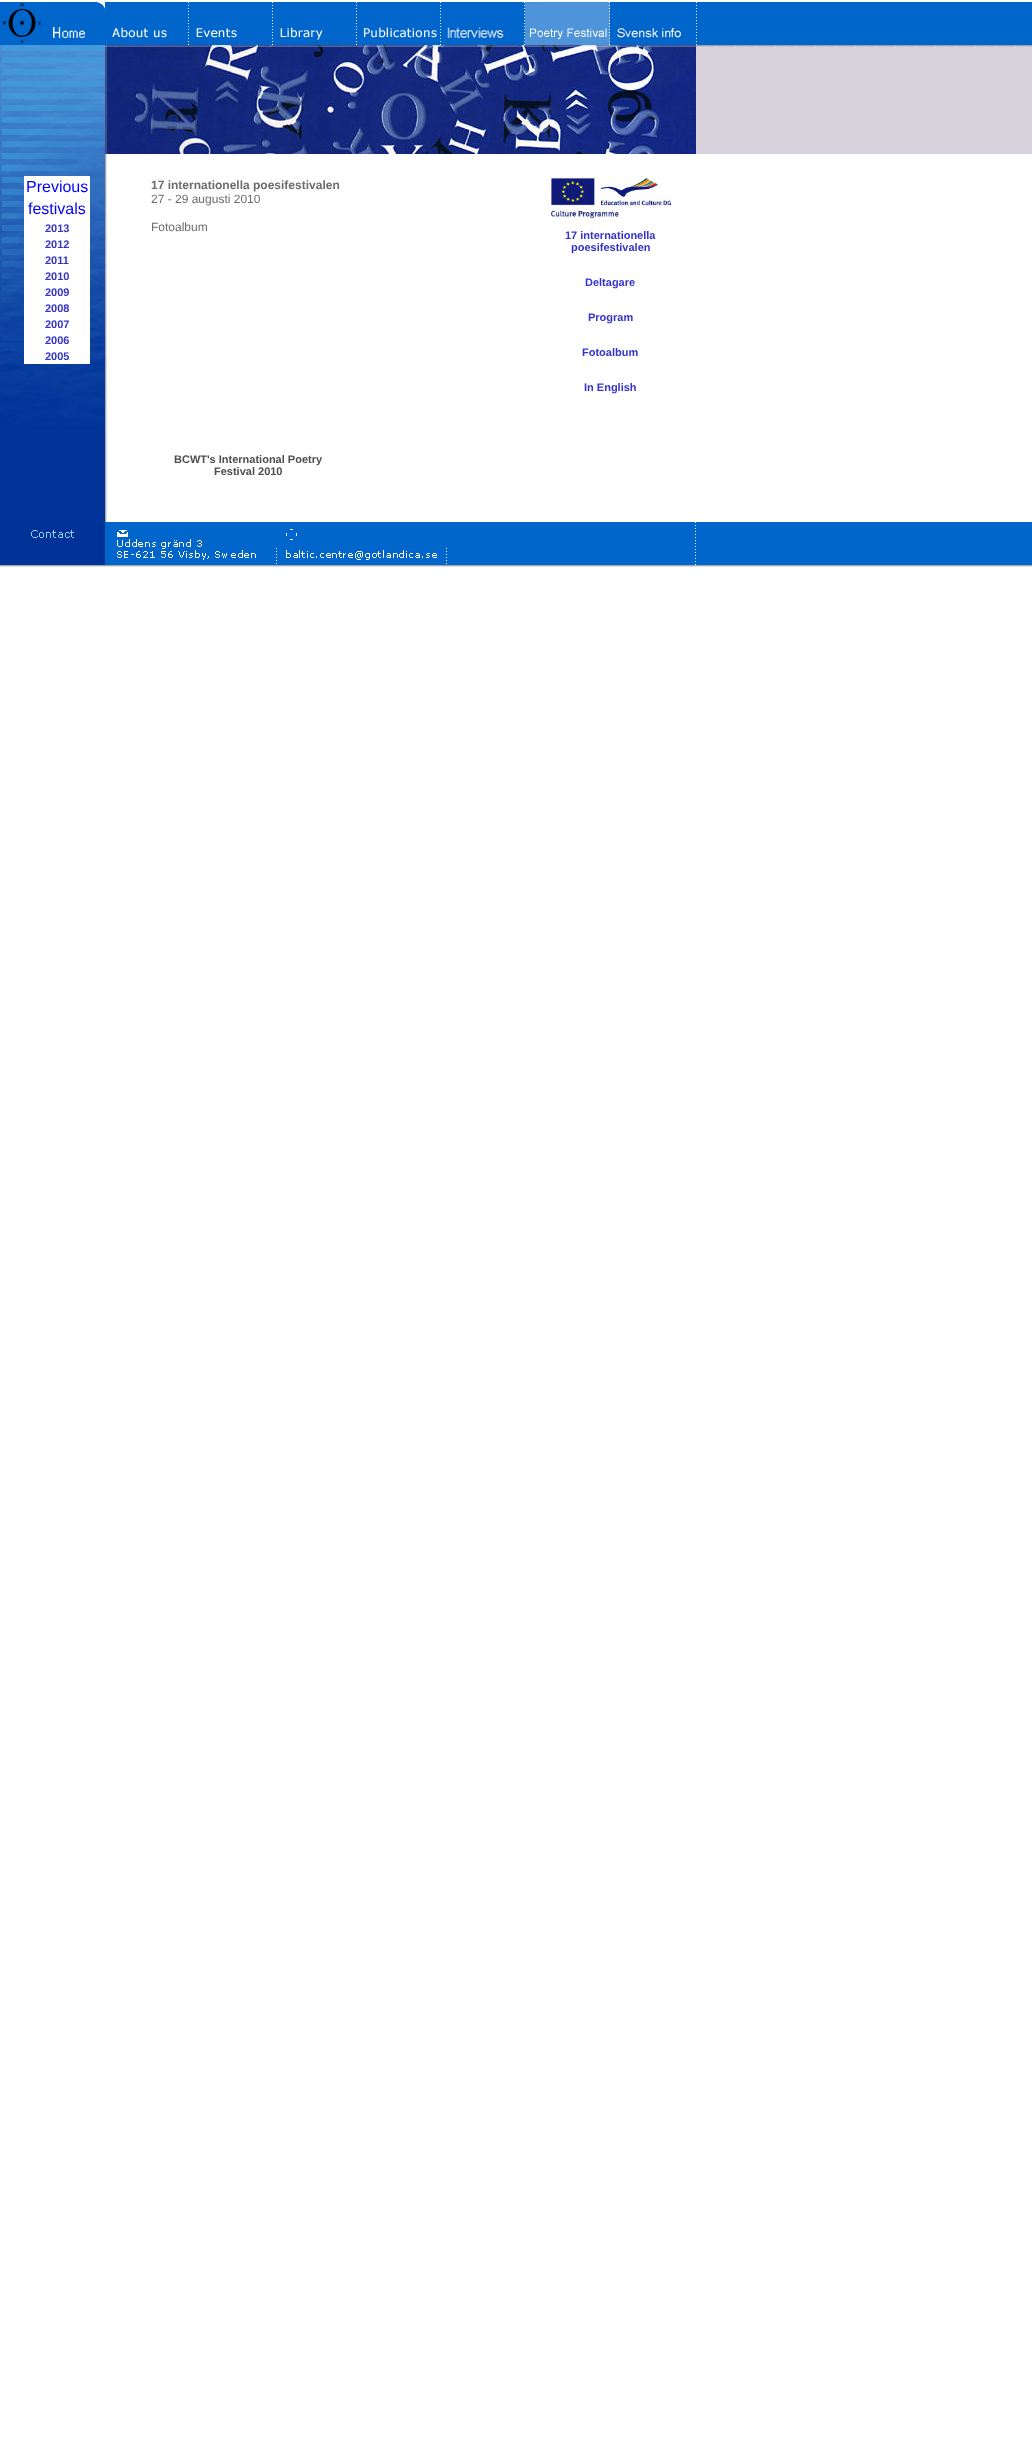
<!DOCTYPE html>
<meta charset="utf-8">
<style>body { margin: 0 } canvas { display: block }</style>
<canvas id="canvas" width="1032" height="2446"></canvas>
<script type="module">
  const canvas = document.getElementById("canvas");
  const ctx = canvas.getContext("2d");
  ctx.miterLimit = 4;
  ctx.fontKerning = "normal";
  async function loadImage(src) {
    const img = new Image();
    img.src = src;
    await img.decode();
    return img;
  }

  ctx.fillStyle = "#ffffff";
  ctx.fillRect(0, 0, 1032, 2446);
  ctx.drawImage(await loadImage("img1.png"), 0, 2, 1032, 152);
  ctx.drawImage(await loadImage("img2.png"), 2, 2, 103, 41);
  ctx.drawImage(await loadImage("img3.png"), 112, 2, 77, 43);
  ctx.drawImage(await loadImage("img4.png"), 196, 2, 77, 43);
  ctx.drawImage(await loadImage("img5.png"), 280, 2, 77, 43);
  ctx.drawImage(await loadImage("img6.png"), 364, 2, 77, 43);
  ctx.drawImage(await loadImage("img7.png"), 447, 2, 78, 43);
  ctx.drawImage(await loadImage("img8.png"), 525, 2, 85, 43);
  ctx.drawImage(await loadImage("img9.png"), 616, 2, 81, 43);
  ctx.drawImage(await loadImage("img10.png"), 0, 154, 107, 368);
  ctx.drawImage(await loadImage("img11.png"), 0, 45, 105, 381);
  ctx.drawImage(await loadImage("img12.png"), 105, 45, 22, 109);
  ctx.fillRect(24, 176, 66, 188);
  ctx.font = "16px Liberation Sans";
  ctx.fillStyle = "#0000ff";
  ctx.fillText("Previous", 26, 192);
  ctx.fillText("festivals", 28, 214);
  ctx.font = "bold 11px Liberation Sans";
  ctx.fillStyle = "#3333cc";
  ctx.fillText("2013", 45, 232);
  ctx.fillText("2012", 45, 248);
  ctx.fillText("2011", 45, 264);
  ctx.fillText("2010", 45, 280);
  ctx.fillText("2009", 45, 296);
  ctx.fillText("2008", 45, 312);
  ctx.fillText("2007", 45, 328);
  ctx.fillText("2006", 45, 344);
  ctx.fillText("2005", 45, 360);
  ctx.drawImage(await loadImage("img13.png"), 127, 45, 569, 109);
  ctx.font = "bold 12px Liberation Sans";
  ctx.fillStyle = "#6c6c6c";
  ctx.fillText("17 internationella poesifestivalen", 151, 189);
  ctx.font = "12px Liberation Sans";
  ctx.fillText("27 - 29 augusti 2010", 151, 203);
  ctx.fillText("Fotoalbum", 151, 231);
  ctx.font = "bold 11px Liberation Sans";
  ctx.fillStyle = "#4d4d4d";
  ctx.fillText("BCWT's International Poetry", 174, 463);
  ctx.fillText("Festival 2010", 214, 475);
  ctx.drawImage(await loadImage("img14.png"), 551, 178, 120, 40);
  ctx.fillStyle = "#3333cc";
  ctx.fillText("17 internationella", 565, 239);
  ctx.fillText("poesifestivalen", 571, 251);
  ctx.fillText("Deltagare", 585, 286);
  ctx.fillText("Program", 588, 321);
  ctx.fillText("Fotoalbum", 582, 356);
  ctx.fillText("In English", 584, 391);
  ctx.fillStyle = "#0066cc";
  ctx.fillRect(105, 522, 927, 43);
  ctx.fillStyle = "#003398";
  ctx.fillRect(0, 522, 105, 43);
  ctx.drawImage(await loadImage("img15.png"), 31, 530, 43, 8);
  ctx.drawImage(await loadImage("img16.png"), 117, 529, 330, 35);
  ctx.drawImage(await loadImage("img17.png"), 695, 522, 1, 43);
  ctx.drawImage(await loadImage("img18.png"), 0, 565, 1032, 2);
</script>
